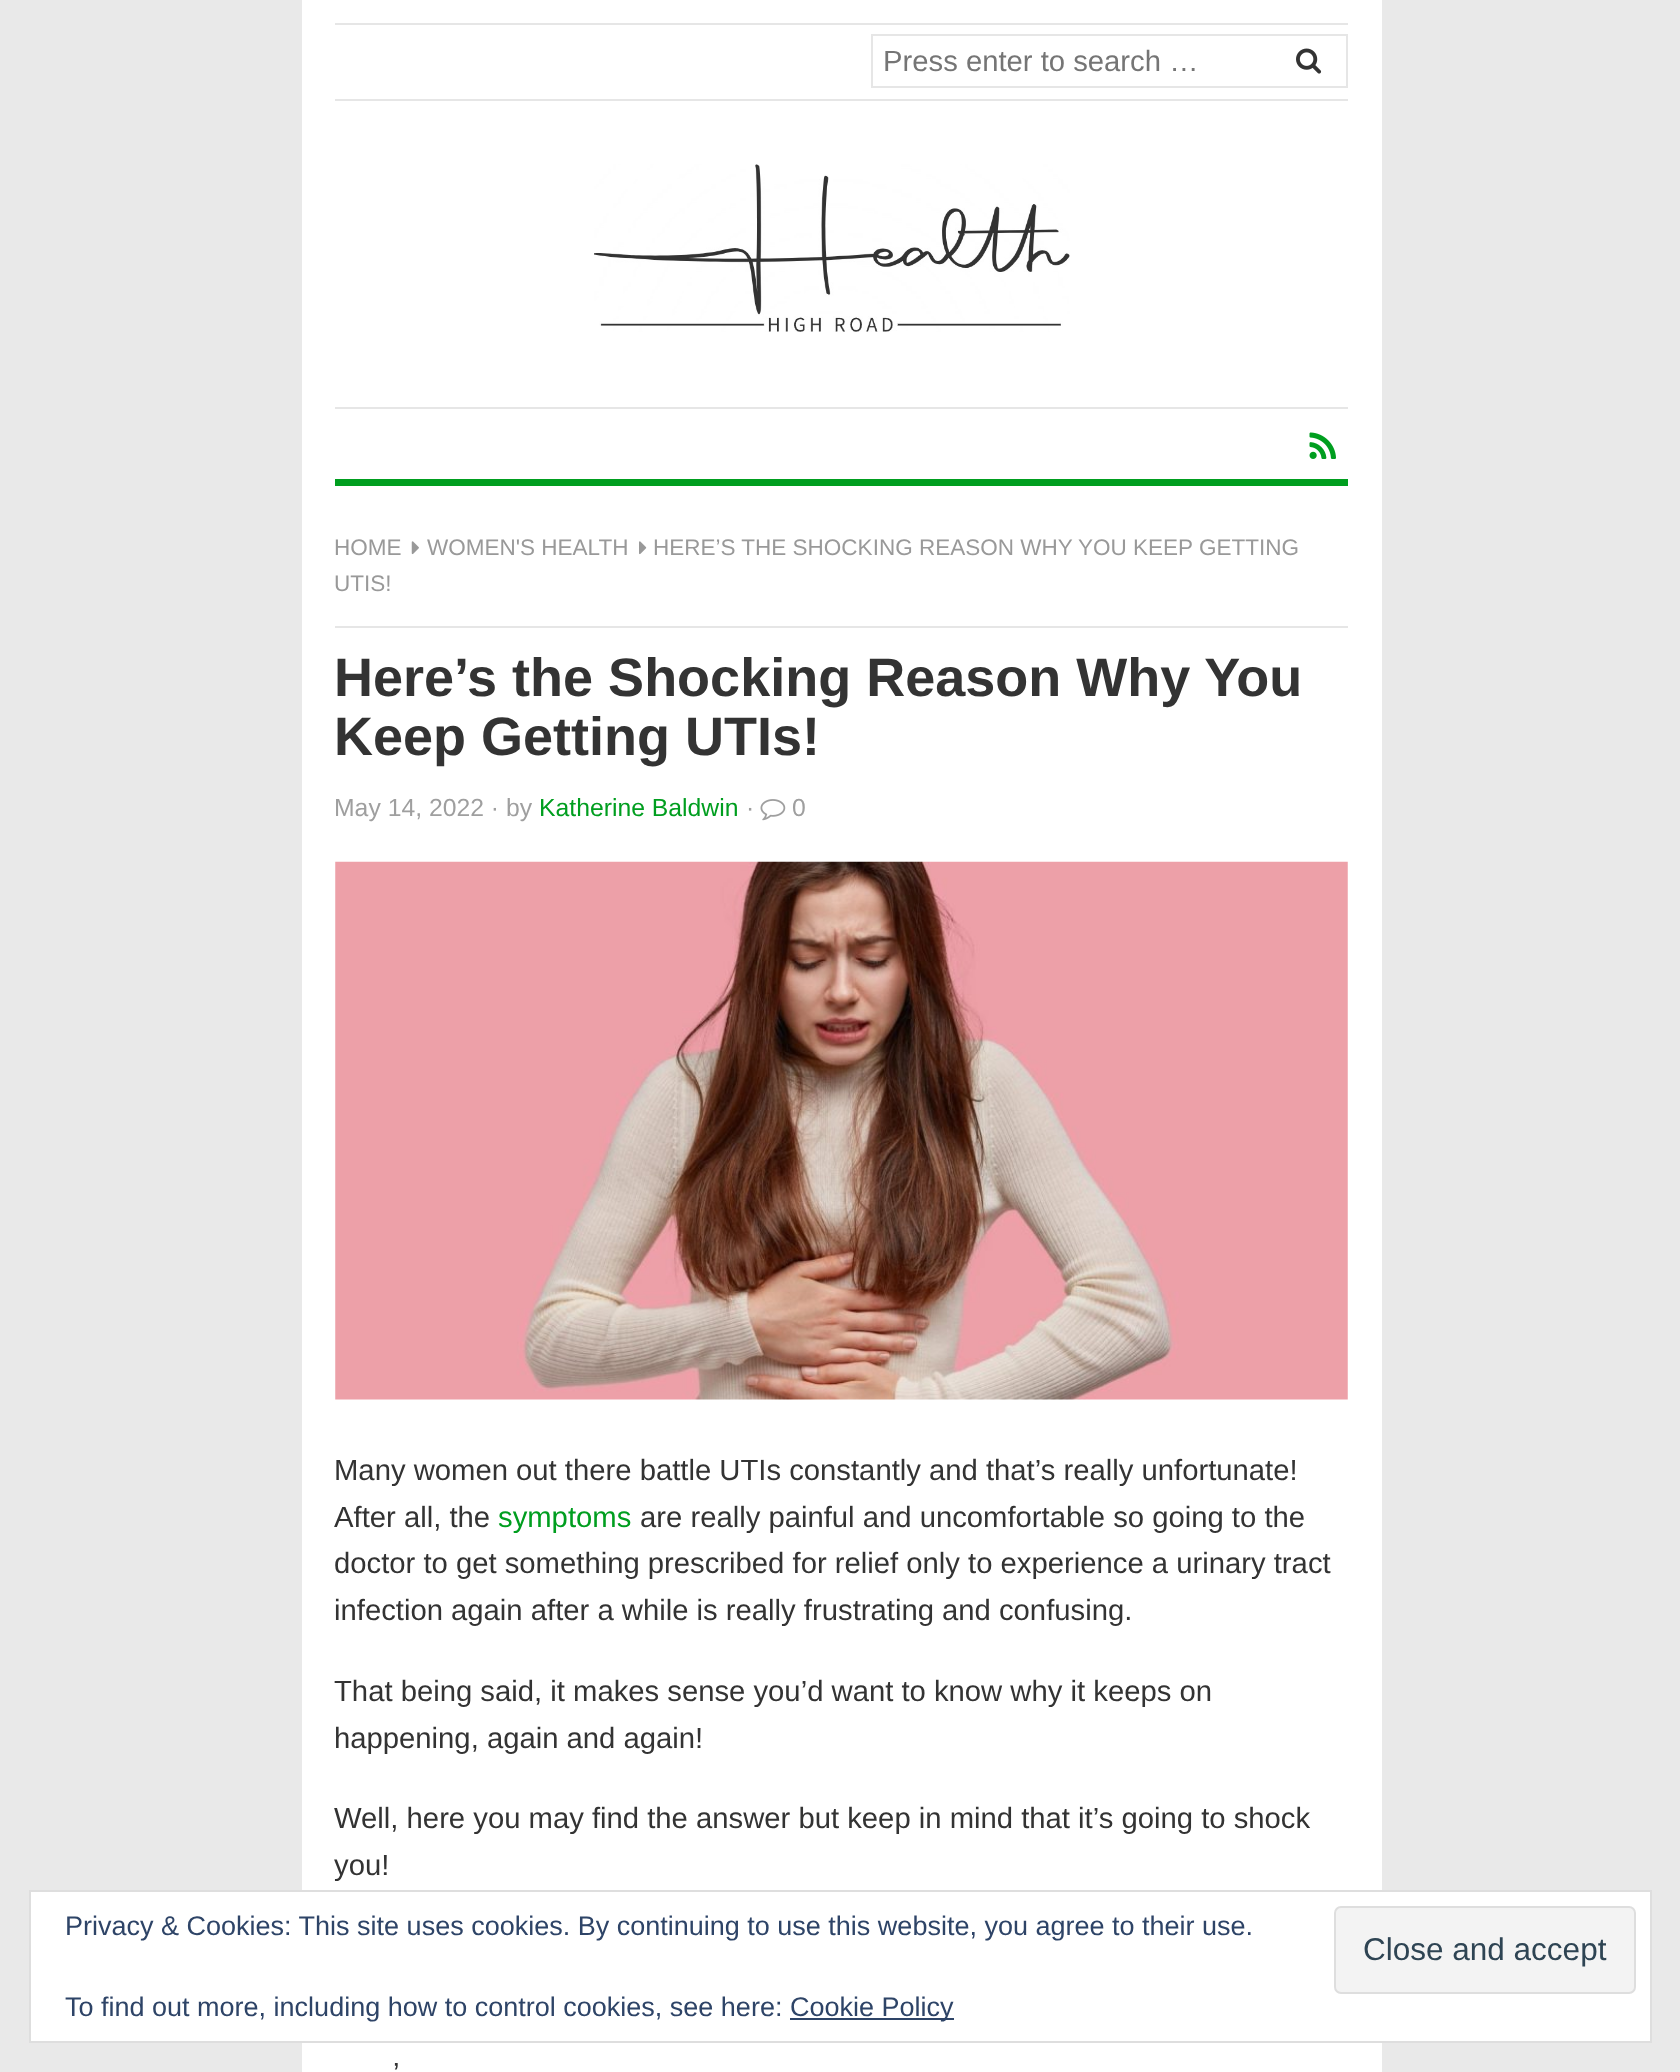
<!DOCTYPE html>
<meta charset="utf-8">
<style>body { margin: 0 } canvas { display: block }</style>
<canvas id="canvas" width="1680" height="2072"></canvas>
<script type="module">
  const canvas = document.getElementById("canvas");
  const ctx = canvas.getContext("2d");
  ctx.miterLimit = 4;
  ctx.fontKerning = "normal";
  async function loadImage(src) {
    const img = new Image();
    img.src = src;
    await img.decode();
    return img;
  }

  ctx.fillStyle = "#e9e9e9";
  ctx.fillRect(0, 0, 1680, 2072);
  ctx.fillStyle = "#ffffff";
  ctx.fillRect(302, 0, 1080, 2072);
  ctx.fillStyle = "#e6e6e6";
  ctx.fillRect(335, 23, 1013, 2);
  ctx.fillRect(335, 99, 1013, 2);
  ctx.strokeStyle = "#e6e6e6";
  ctx.lineWidth = 2;
  ctx.strokeRect(872, 35, 475, 52);
  ctx.font = "29.25px Liberation Sans";
  ctx.fillStyle = "#757575";
  ctx.fillText("Press enter to search …", 883, 71);
  ctx.drawImage(await loadImage("img1.png"), 1296, 48, 26, 26);
  ctx.drawImage(await loadImage("img2.png"), 594, 164, 476, 168);
  ctx.fillStyle = "#e6e6e6";
  ctx.fillRect(335, 407, 1013, 2);
  ctx.fillStyle = "#009e1f";
  ctx.fillRect(335, 479, 1013, 7);
  ctx.drawImage(await loadImage("img3.png"), 1309, 432, 27, 27);
  ctx.fillStyle = "#e6e6e6";
  ctx.fillRect(335, 626, 1013, 2);
  ctx.font = "22.5px Liberation Sans";
  ctx.fillStyle = "#999999";
  ctx.fillText("HOME", 334, 555);
  ctx.drawImage(await loadImage("img4.png"), 411, 541, 8, 14);
  ctx.fillText("WOMEN'S HEALTH", 427, 555);
  ctx.drawImage(await loadImage("img5.png"), 639, 541, 8, 14);
  ctx.fillText("HERE’S THE SHOCKING REASON WHY YOU KEEP GETTING", 653, 555);
  ctx.fillText("UTIS!", 334, 591);
  ctx.font = "bold 54px Liberation Sans";
  ctx.fillStyle = "#333333";
  ctx.fillText("Here’s the Shocking Reason Why You", 334, 696);
  ctx.fillText("Keep Getting UTIs!", 334, 755);
  ctx.font = "24.75px Liberation Sans";
  ctx.fillStyle = "#9f9f9f";
  ctx.fillText("May 14, 2022 · by", 334, 816);
  ctx.fillStyle = "#009e1f";
  ctx.fillText("Katherine Baldwin", 539, 816);
  ctx.fillStyle = "#9f9f9f";
  ctx.fillText("·", 746, 816);
  ctx.drawImage(await loadImage("img6.png"), 760, 799, 26, 22);
  ctx.fillText("0", 792, 816);
  ctx.drawImage(await loadImage("img7.png"), 335, 861, 1013, 539);
  ctx.font = "29.25px Liberation Sans";
  ctx.fillStyle = "#333333";
  ctx.fillText("Many women out there battle UTIs constantly and that’s really unfortunate!", 334, 1480);
  ctx.fillText("After all, the", 334, 1527);
  ctx.fillStyle = "#009e1f";
  ctx.fillText("symptoms", 498, 1527);
  ctx.fillStyle = "#333333";
  ctx.fillText("are really painful and uncomfortable so going to the", 640, 1527);
  ctx.fillText("doctor to get something prescribed for relief only to experience a urinary tract", 334, 1573);
  ctx.fillText("infection again after a while is really frustrating and confusing.", 334, 1620);
  ctx.fillText("That being said, it makes sense you’d want to know why it keeps on", 334, 1701);
  ctx.fillText("happening, again and again!", 334, 1748);
  ctx.fillText("Well, here you may find the answer but keep in mind that it’s going to shock", 334, 1828);
  ctx.fillText("you!", 334, 1875);
  ctx.fillText("’", 393, 2083);
  ctx.fillStyle = "#ffffff";
  ctx.beginPath();
  ctx.rect(30, 1891, 1621, 151);
  ctx.fill();
  ctx.strokeStyle = "#dedede";
  ctx.stroke();
  ctx.font = "27px Liberation Sans";
  ctx.fillStyle = "#2e4467";
  ctx.fillText("Privacy & Cookies: This site uses cookies. By continuing to use this website, you agree to their use.", 65, 1935);
  ctx.fillStyle = "#f3f3f3";
  ctx.beginPath();
  ctx.roundRect(1335, 1907, 300, 86, 6);
  ctx.fill();
  ctx.stroke();
  ctx.font = "31.5px Liberation Sans";
  ctx.fillStyle = "#2e4453";
  ctx.fillText("Close and accept", 1363, 1960);
  ctx.font = "27px Liberation Sans";
  ctx.fillStyle = "#2e4467";
  ctx.fillText("To find out more, including how to control cookies, see here:", 65, 2016);
  ctx.fillRect(790, 2018, 164, 2);
  ctx.fillText("Cookie Policy", 790, 2016);
</script>
